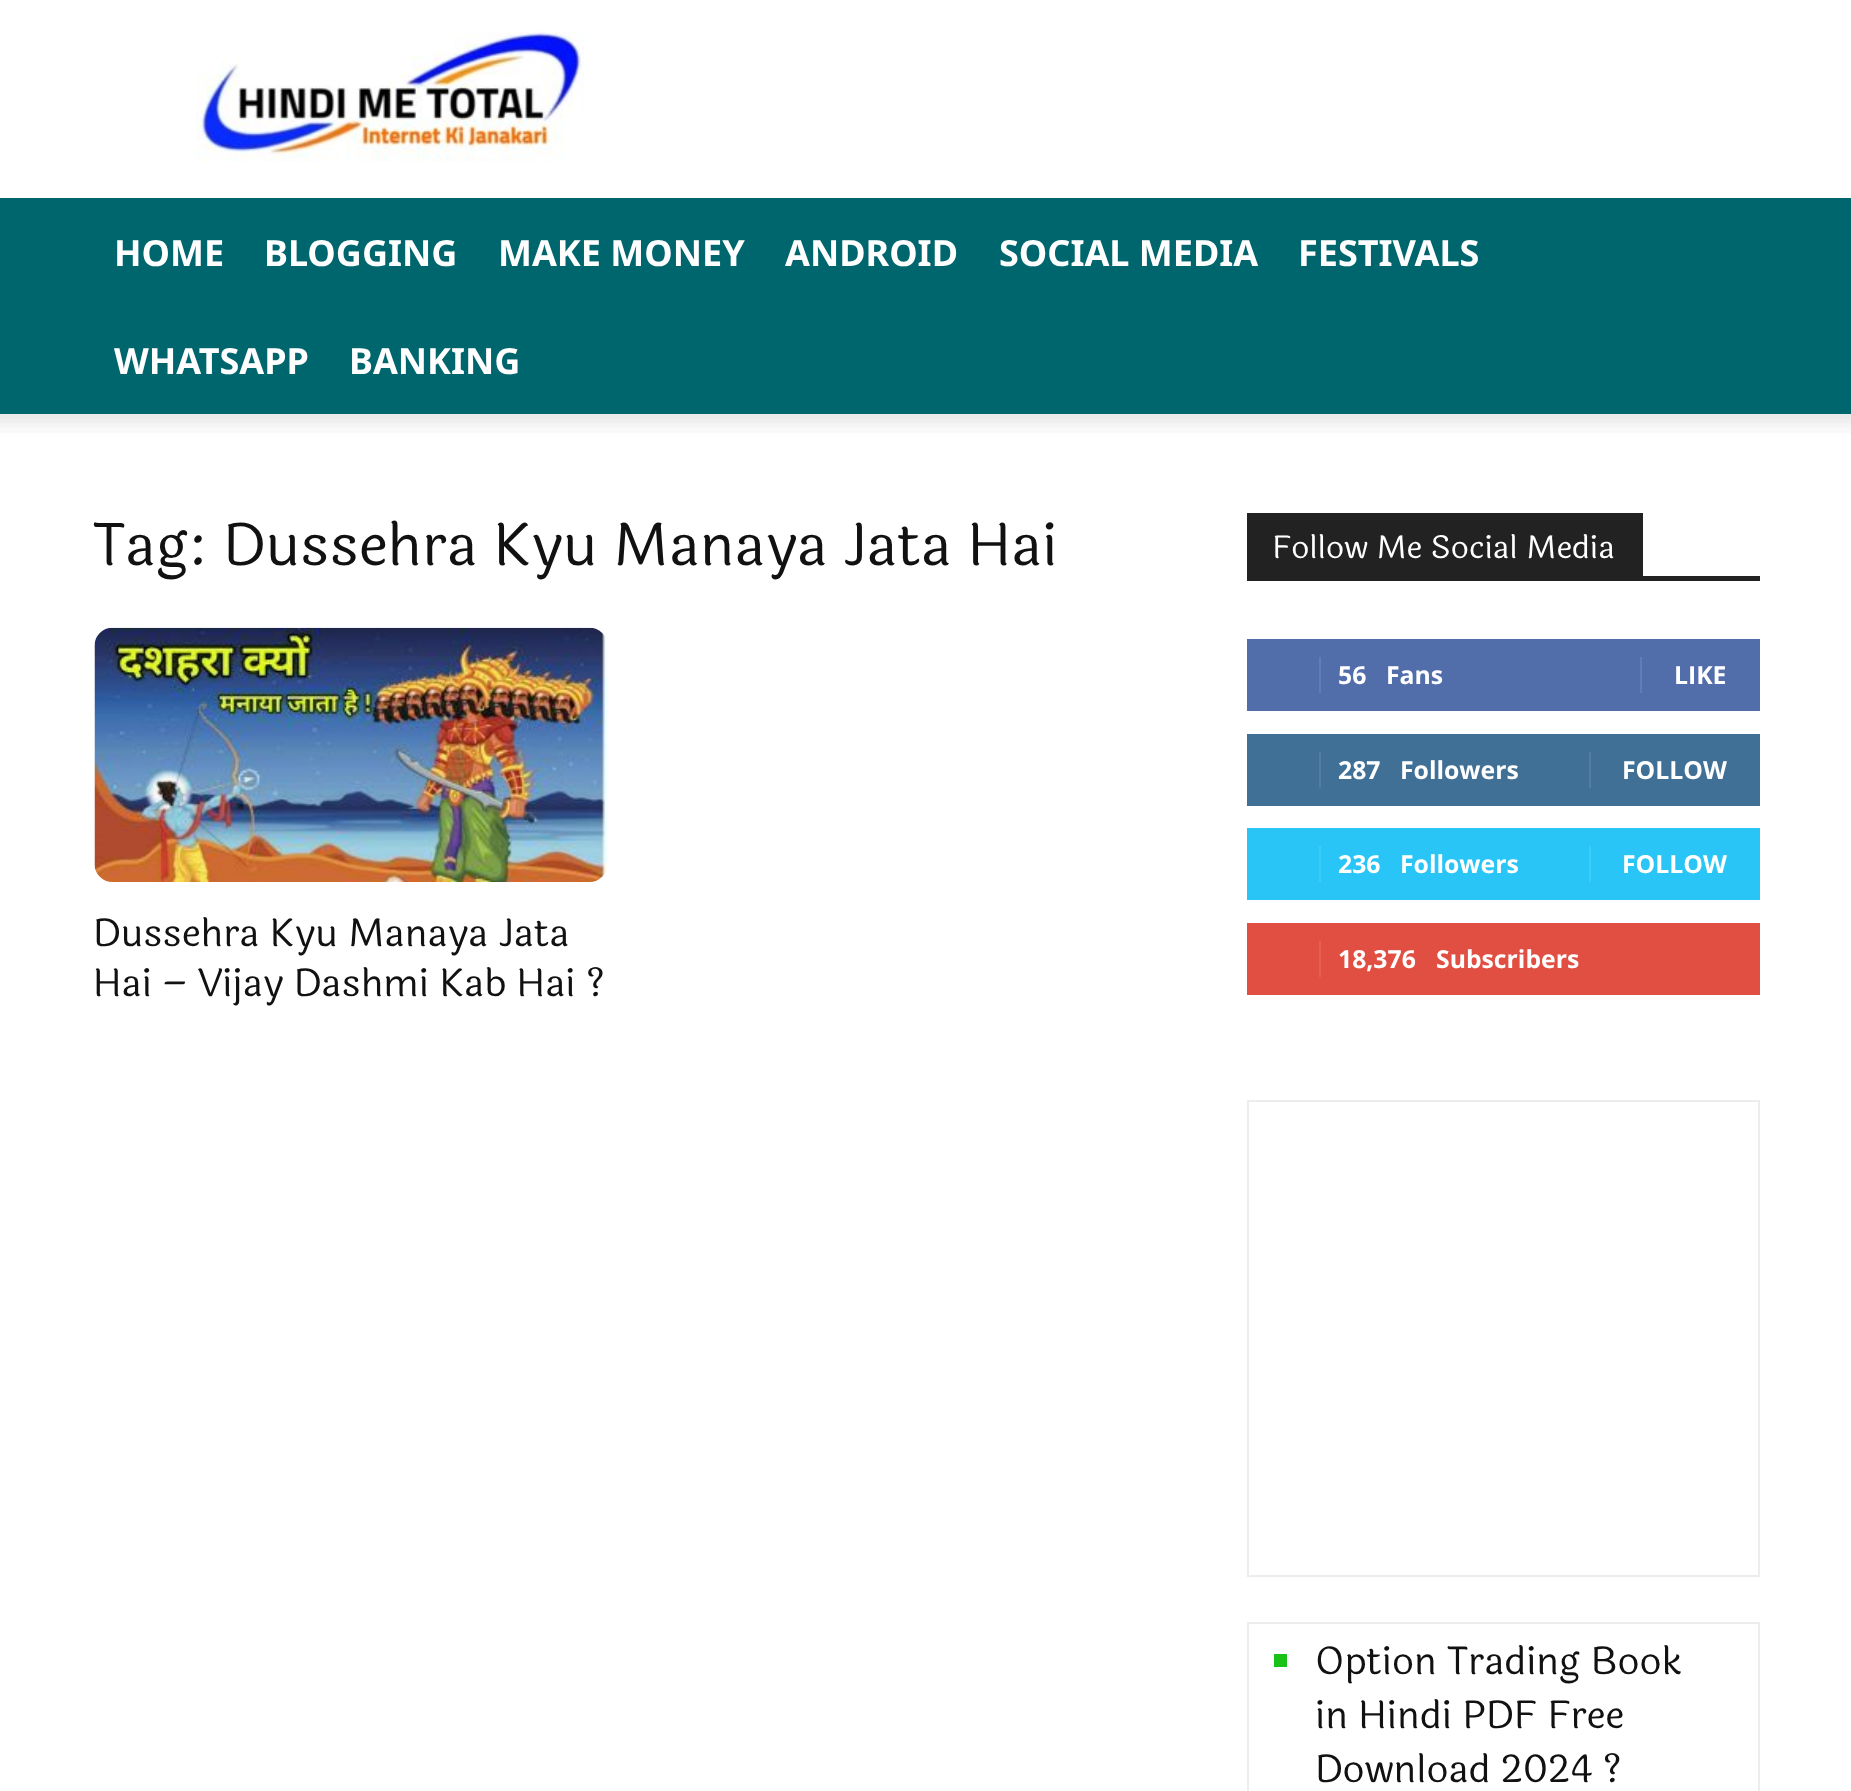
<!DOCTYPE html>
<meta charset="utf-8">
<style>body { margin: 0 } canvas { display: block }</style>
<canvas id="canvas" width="1851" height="1791"></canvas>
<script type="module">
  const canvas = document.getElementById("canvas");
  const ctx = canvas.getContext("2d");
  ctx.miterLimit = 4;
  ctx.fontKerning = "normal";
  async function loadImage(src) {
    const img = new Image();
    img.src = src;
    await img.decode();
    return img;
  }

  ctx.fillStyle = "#ffffff";
  ctx.fillRect(0, 0, 1851, 1791);
  ctx.drawImage(await loadImage("img1.png"), 196, 31, 389, 131);
  ctx.fillStyle = "#00666d";
  ctx.fillRect(0, 198, 1851, 216);
  ctx.font = "bold 36px Noto Sans";
  ctx.fillStyle = "#ffffff";
  ctx.fillText("HOME", 114, 266);
  ctx.fillText("BLOGGING", 264, 266);
  ctx.fillText("MAKE MONEY", 498, 266);
  ctx.fillText("ANDROID", 785, 266);
  ctx.fillText("SOCIAL MEDIA", 999, 266);
  ctx.fillText("FESTIVALS", 1298, 266);
  ctx.fillText("WHATSAPP", 114, 374);
  ctx.fillText("BANKING", 349, 374);
  ctx.drawImage(await loadImage("img2.png"), 0, 414, 1851, 19);
  ctx.font = "58.5px Laila";
  ctx.fillStyle = "#111111";
  ctx.fillText("Tag: Dussehra Kyu Manaya Jata Hai", 93, 565);
  ctx.drawImage(await loadImage("img3.png"), 94, 627, 514, 255);
  ctx.font = "38.25px Laila";
  ctx.fillText("Dussehra Kyu Manaya Jata", 93, 946);
  ctx.fillText("Hai – Vijay Dashmi Kab Hai ?", 93, 996);
  ctx.fillStyle = "#222222";
  ctx.fillRect(1247, 576, 513, 5);
  ctx.fillRect(1247, 513, 396, 63);
  ctx.font = "31.5px Laila";
  ctx.fillStyle = "#ffffff";
  ctx.fillText("Follow Me Social Media", 1272, 558);
  ctx.fillStyle = "#516eab";
  ctx.fillRect(1247, 639, 513, 72);
  ctx.fillStyle = "#627db3";
  ctx.fillRect(1319, 657, 2, 36);
  ctx.font = "bold 24.75px Open Sans";
  ctx.fillStyle = "#ffffff";
  ctx.fillText("56", 1338, 684);
  ctx.fillText("Fans", 1386, 684);
  ctx.fillStyle = "#627db3";
  ctx.fillRect(1640, 657, 2, 36);
  ctx.fillStyle = "#ffffff";
  ctx.fillText("LIKE", 1674, 684);
  ctx.fillStyle = "#417096";
  ctx.fillRect(1247, 734, 513, 72);
  ctx.fillStyle = "#547ea1";
  ctx.fillRect(1319, 752, 2, 36);
  ctx.fillStyle = "#ffffff";
  ctx.fillText("287", 1338, 779);
  ctx.fillText("Followers", 1400, 779);
  ctx.fillStyle = "#547ea1";
  ctx.fillRect(1589, 752, 2, 36);
  ctx.fillStyle = "#ffffff";
  ctx.fillText("FOLLOW", 1622, 779);
  ctx.fillStyle = "#29c5f6";
  ctx.fillRect(1247, 828, 513, 72);
  ctx.fillStyle = "#3ecbf7";
  ctx.fillRect(1319, 846, 2, 36);
  ctx.fillStyle = "#ffffff";
  ctx.fillText("236", 1338, 873);
  ctx.fillText("Followers", 1400, 873);
  ctx.fillStyle = "#3ecbf7";
  ctx.fillRect(1589, 846, 2, 36);
  ctx.fillStyle = "#ffffff";
  ctx.fillText("FOLLOW", 1622, 873);
  ctx.fillStyle = "#e14e42";
  ctx.fillRect(1247, 923, 513, 72);
  ctx.fillStyle = "#e46055";
  ctx.fillRect(1319, 941, 2, 36);
  ctx.fillStyle = "#ffffff";
  ctx.fillText("18,376", 1338, 968);
  ctx.fillText("Subscribers", 1436, 968);
  ctx.strokeStyle = "#ededed";
  ctx.lineWidth = 2;
  ctx.strokeRect(1248, 1101, 511, 475);
  ctx.strokeRect(1248, 1623, 511, 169);
  ctx.fillStyle = "#1ac117";
  ctx.fillRect(1274, 1654, 13, 13);
  ctx.font = "38.25px Laila";
  ctx.fillStyle = "#111111";
  ctx.fillText("Option Trading Book", 1315, 1674);
  ctx.fillText("in Hindi PDF Free", 1315, 1728);
  ctx.fillText("Download 2024 ?", 1315, 1782);
</script>
